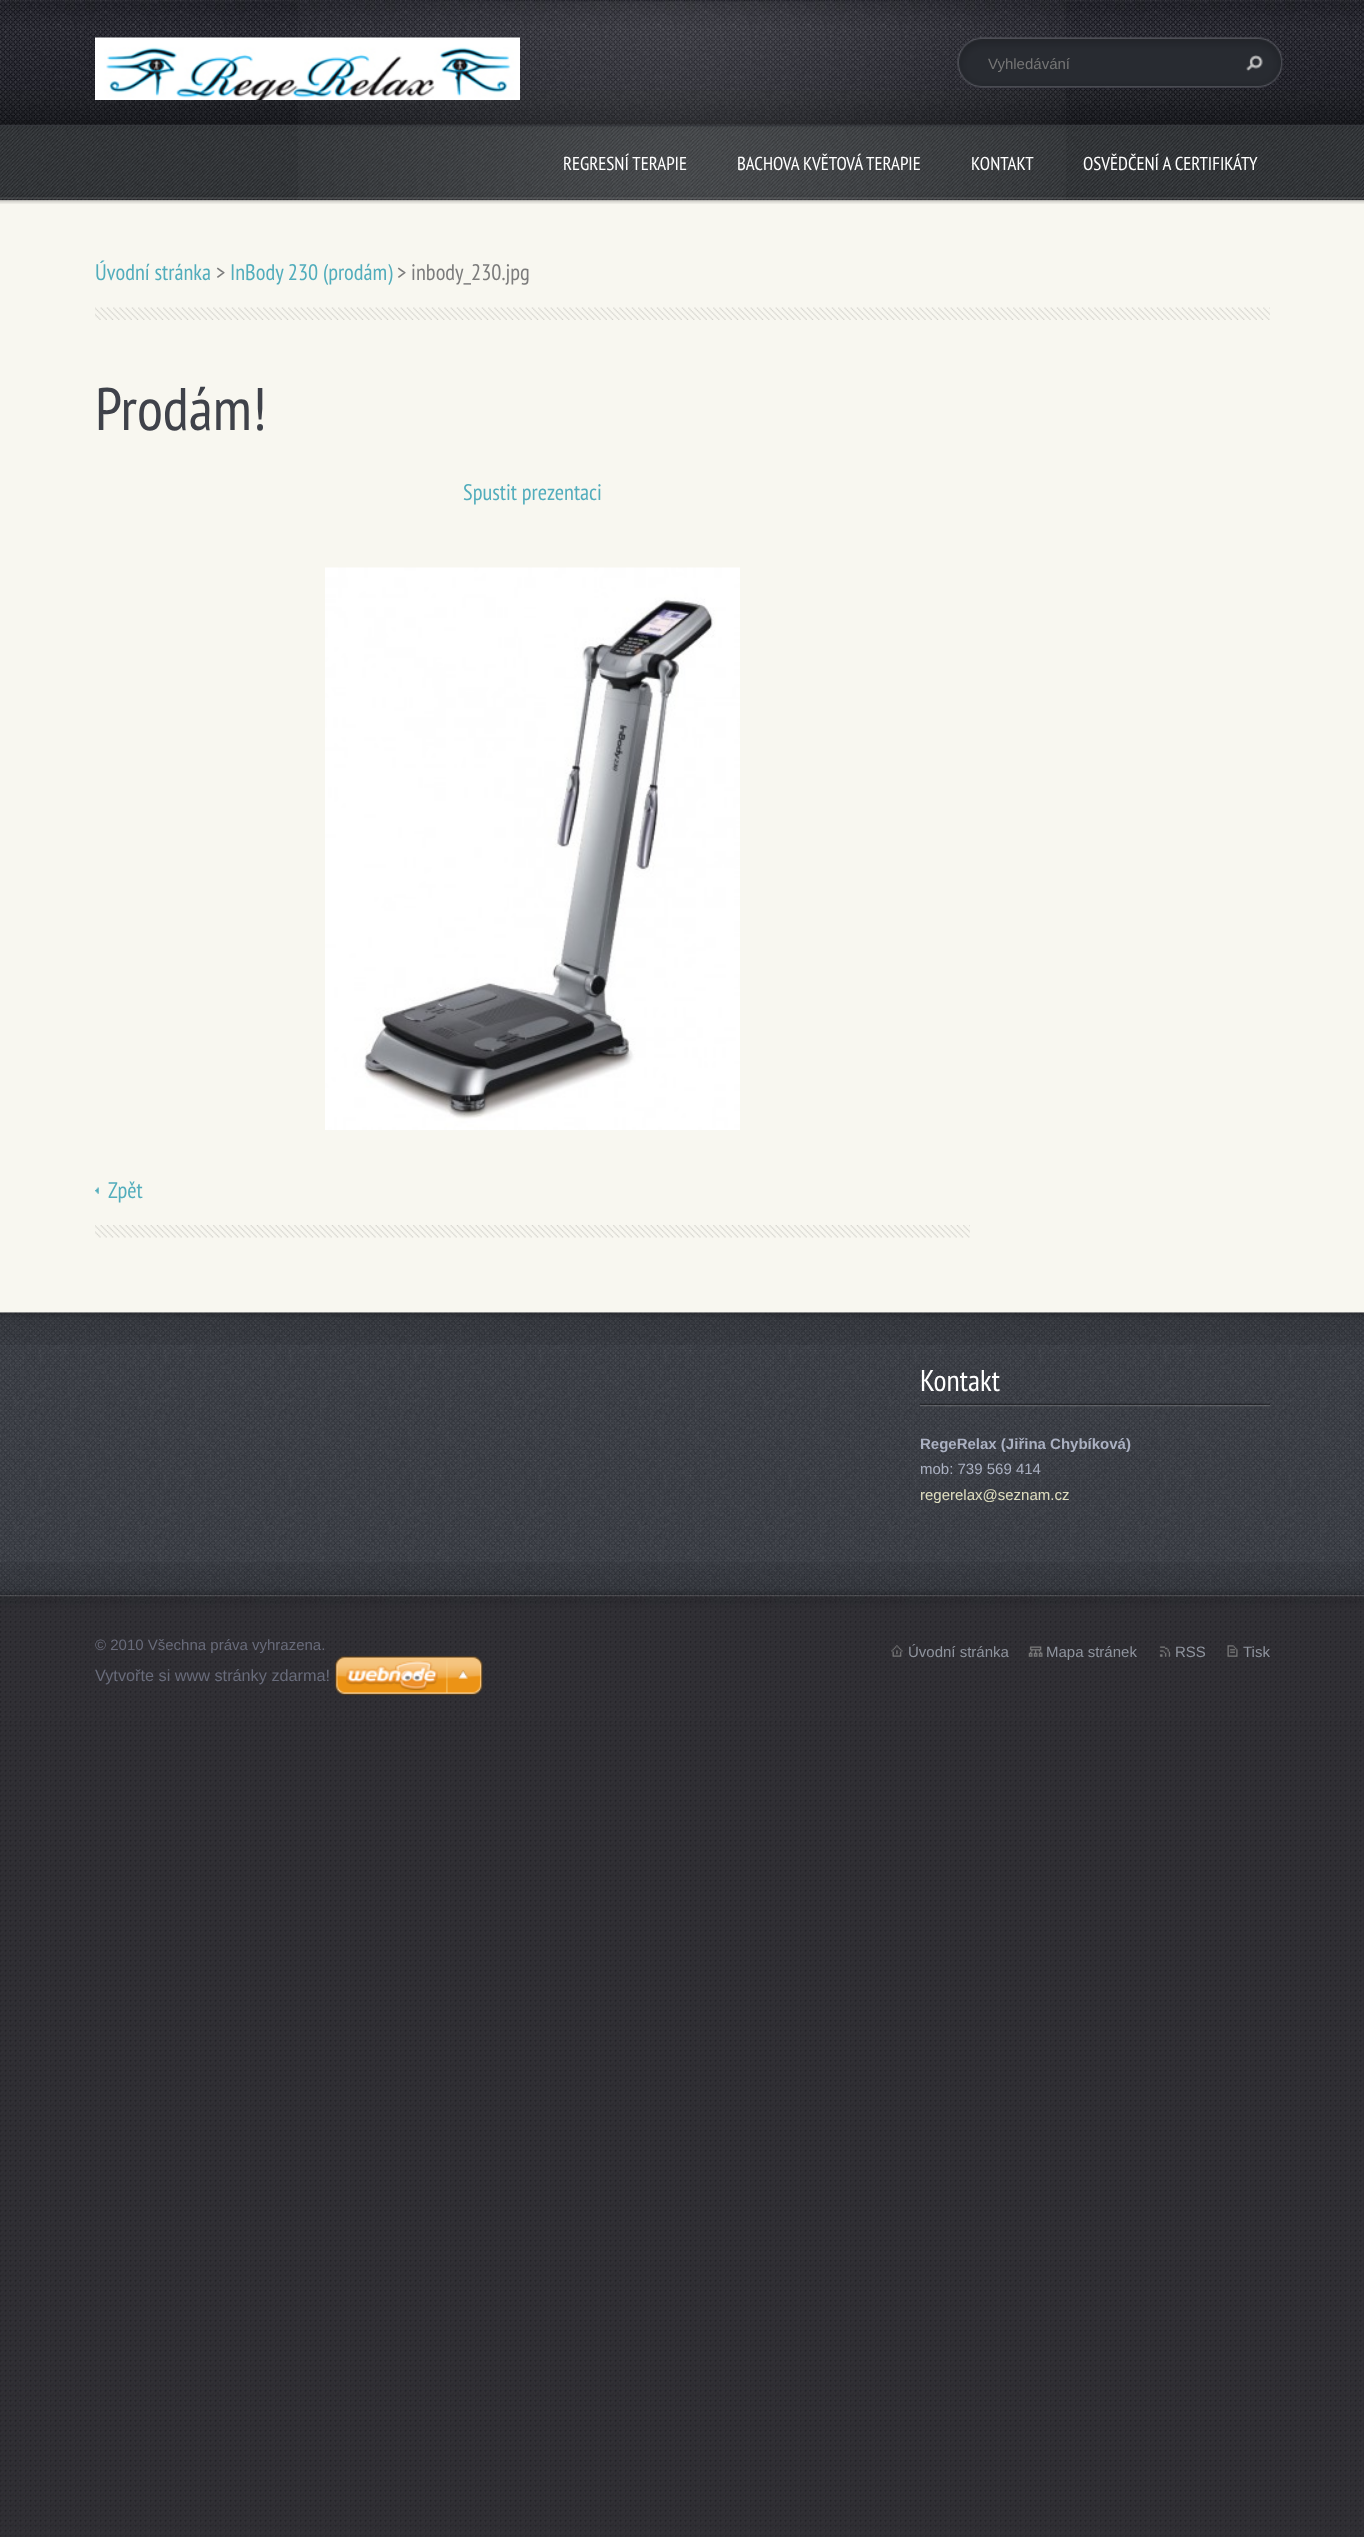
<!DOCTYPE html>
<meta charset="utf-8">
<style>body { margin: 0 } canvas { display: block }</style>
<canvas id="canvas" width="1364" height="2537"></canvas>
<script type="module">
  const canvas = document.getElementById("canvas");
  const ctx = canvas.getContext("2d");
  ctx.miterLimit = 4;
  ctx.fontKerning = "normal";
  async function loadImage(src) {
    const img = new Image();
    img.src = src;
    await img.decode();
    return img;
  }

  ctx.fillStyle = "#ffffff";
  ctx.fillRect(0, 0, 1364, 2537);
  ctx.drawImage(await loadImage("img1.png"), 0, 125, 1364, 2412);
  ctx.drawImage(await loadImage("img2.png"), 0, 0, 1364, 125);
  ctx.drawImage(await loadImage("img3.png"), 298, 1, 768, 124);
  ctx.drawImage(await loadImage("img4.png"), 95, 37, 425, 63);
  ctx.drawImage(await loadImage("img5.png"), 957, 37, 326, 51);
  ctx.font = "15px Liberation Sans";
  ctx.fillStyle = "#757575";
  ctx.fillText("Vyhledávání", 988, 69);
  ctx.drawImage(await loadImage("img6.png"), 1246, 55, 17, 17);
  ctx.drawImage(await loadImage("img7.png"), 0, 125, 1364, 75);
  ctx.drawImage(await loadImage("img8.png"), 298, 126, 768, 74);
  ctx.font = "18.75px PT Sans Narrow";
  ctx.fillStyle = "#ffffff";
  ctx.fillText("REGRESNÍ TERAPIE", 563, 170);
  ctx.fillText("BACHOVA KVĚTOVÁ TERAPIE", 737, 170);
  ctx.fillText("KONTAKT", 971, 170);
  ctx.fillText("OSVĚDČENÍ A CERTIFIKÁTY", 1083, 170);
  ctx.fillStyle = "#f8f7f0";
  ctx.fillRect(0, 200, 1364, 1113);
  ctx.drawImage(await loadImage("img9.png"), 0, 200, 1364, 4);
  ctx.drawImage(await loadImage("img10.png"), 95, 307, 1175, 13);
  ctx.font = "22.5px PT Sans Narrow";
  ctx.fillStyle = "#52adbc";
  ctx.fillText("Úvodní stránka", 95, 280);
  ctx.fillStyle = "#7c7c7c";
  ctx.fillText(">", 216, 280);
  ctx.fillStyle = "#52adbc";
  ctx.fillText("InBody 230 (prodám)", 230, 280);
  ctx.fillStyle = "#7c7c7c";
  ctx.fillText("> inbody_230.jpg", 397, 280);
  ctx.drawImage(await loadImage("img11.png"), 95, 1225, 875, 13);
  ctx.font = "60px PT Sans Narrow";
  ctx.fillStyle = "#3f424a";
  ctx.fillText("Prodám!", 95, 430);
  ctx.font = "22.5px PT Sans Narrow";
  ctx.fillStyle = "#52adbc";
  ctx.fillText("Spustit prezentaci", 463, 500);
  ctx.drawImage(await loadImage("img12.png"), 325, 567, 415, 563);
  ctx.drawImage(await loadImage("img13.png"), 95, 1187, 4, 7);
  ctx.fillText("Zpět", 108, 1198);
  ctx.drawImage(await loadImage("img14.png"), 0, 1312, 1364, 283);
  ctx.drawImage(await loadImage("img15.png"), 0, 1312, 1364, 33);
  ctx.drawImage(await loadImage("img16.png"), 920, 1403, 350, 4);
  ctx.font = "30px PT Sans Narrow";
  ctx.fillStyle = "#ffffff";
  ctx.fillText("Kontakt", 920, 1391);
  ctx.font = "bold 15px Liberation Sans";
  ctx.fillStyle = "#abb1c2";
  ctx.fillText("RegeRelax (Jiřina Chybíková)", 920, 1449);
  ctx.font = "15px Liberation Sans";
  ctx.fillText("mob: 739 569 414", 920, 1474);
  ctx.fillStyle = "#e0dfc0";
  ctx.fillText("regerelax@seznam.cz", 920, 1500);
  ctx.drawImage(await loadImage("img17.png"), 0, 1562, 1364, 33);
  ctx.drawImage(await loadImage("img18.png"), 0, 1595, 1364, 129);
  ctx.fillStyle = "#686b7a";
  ctx.fillText("© 2010 Všechna práva vyhrazena.", 95, 1650);
  ctx.drawImage(await loadImage("img19.png"), 891, 1645, 12, 12);
  ctx.fillStyle = "#8f949e";
  ctx.fillText("Úvodní stránka", 908, 1657);
  ctx.drawImage(await loadImage("img20.png"), 1028, 1646, 15, 11);
  ctx.fillText("Mapa stránek", 1046, 1657);
  ctx.drawImage(await loadImage("img21.png"), 1159, 1646, 12, 11);
  ctx.fillText("RSS", 1175, 1657);
  ctx.drawImage(await loadImage("img22.png"), 1227, 1645, 11, 12);
  ctx.fillText("Tisk", 1243, 1657);
  ctx.font = "16.25px Liberation Sans";
  ctx.fillStyle = "#686b7a";
  ctx.fillText("Vytvořte si www stránky zdarma!", 95, 1681);
  ctx.drawImage(await loadImage("img23.png"), 335, 1656, 148, 39);
</script>
